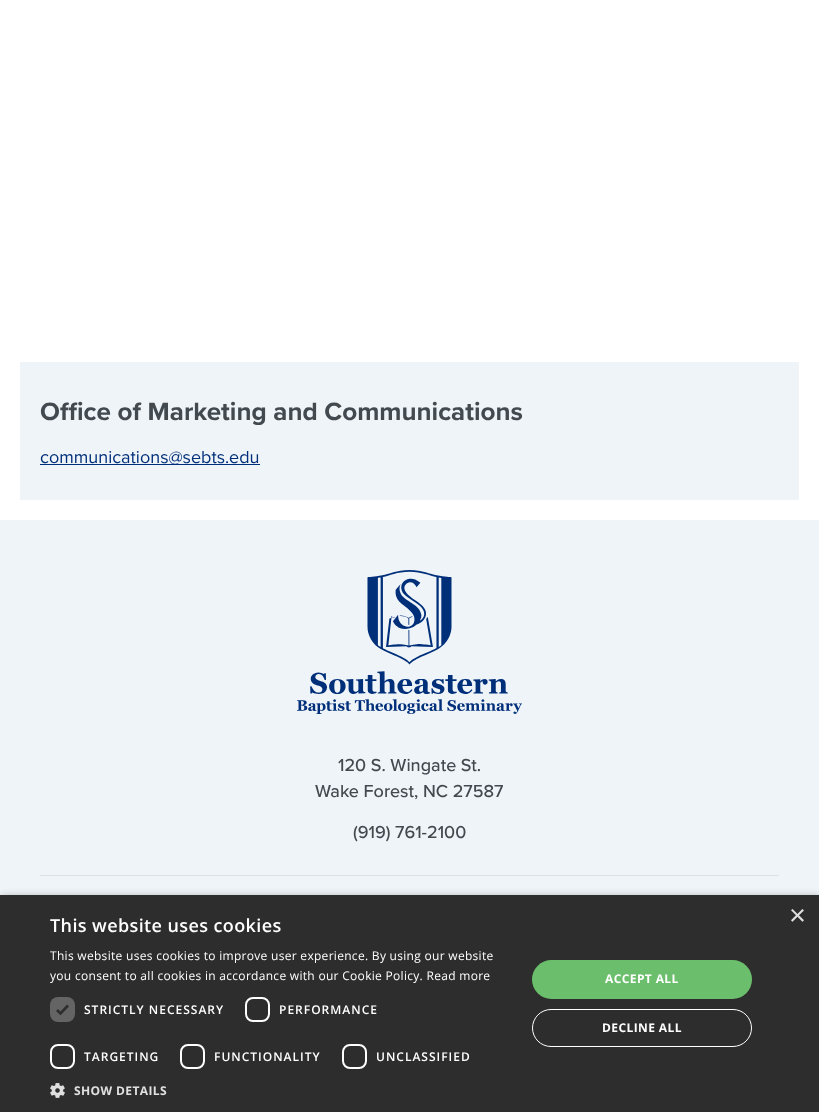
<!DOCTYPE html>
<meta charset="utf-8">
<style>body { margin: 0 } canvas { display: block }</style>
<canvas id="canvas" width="819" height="1112"></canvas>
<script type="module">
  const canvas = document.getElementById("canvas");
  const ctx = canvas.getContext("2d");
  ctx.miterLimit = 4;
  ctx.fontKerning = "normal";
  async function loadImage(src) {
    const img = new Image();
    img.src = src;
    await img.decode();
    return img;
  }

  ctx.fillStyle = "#ffffff";
  ctx.fillRect(0, 0, 819, 1112);
  ctx.fillStyle = "#eff4f9";
  ctx.fillRect(20, 362, 779, 138);
  ctx.font = "bold 26px Proxima Nova";
  ctx.fillStyle = "#42494f";
  ctx.fillText("Office of Marketing and Communications", 40, 420);
  ctx.fillStyle = "#002f7a";
  ctx.fillRect(40, 464, 220, 1);
  ctx.font = "18px Proxima Nova";
  ctx.fillText("communications@sebts.edu", 40, 463);
  ctx.fillStyle = "#eff4f9";
  ctx.fillRect(0, 520, 819, 375);
  ctx.fillStyle = "#dce1e5";
  ctx.fillRect(40, 875, 739, 1);
  ctx.drawImage(await loadImage("img1.png"), 297, 570, 225, 144);
  ctx.font = "500 18px Proxima Nova";
  ctx.fillStyle = "#42494f";
  ctx.fillText("120 S. Wingate St.", 338, 771);
  ctx.fillText("Wake Forest, NC 27587", 315, 797);
  ctx.fillText("(919) 761-2100", 353, 838);
  ctx.fillStyle = "rgba(0, 0, 0, 0.35)";
  ctx.filter = "blur(4px)";
  ctx.beginPath();
  ctx.rect(1, 897, 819, 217);
  ctx.fill();
  ctx.filter = "none";
  ctx.fillStyle = "#2d2d2d";
  ctx.fillRect(0, 895, 819, 217);
  ctx.font = "29px Liberation Sans";
  ctx.fillStyle = "#e0e0e0";
  ctx.fillText("×", 789, 925);
  ctx.letterSpacing = "0.4px";
  ctx.font = "600 18px Open Sans";
  ctx.fillStyle = "#ffffff";
  ctx.fillText("This website uses cookies", 50, 932);
  ctx.letterSpacing = "0.3px";
  ctx.font = "12px Open Sans";
  ctx.fillText("This website uses cookies to improve user experience. By using our website", 50, 960);
  ctx.fillText("you consent to all cookies in accordance with our Cookie Policy. Read more", 50, 980);
  ctx.fillStyle = "#646464";
  ctx.beginPath();
  ctx.roundRect(50, 997, 25, 25, 8);
  ctx.fill();
  ctx.beginPath();
  ctx.moveTo(57, 1010);
  ctx.lineTo(60.5, 1013.5);
  ctx.lineTo(68, 1005.5);
  ctx.strokeStyle = "#2d2d2d";
  ctx.lineWidth = 2.6;
  ctx.stroke();
  ctx.letterSpacing = "1px";
  ctx.font = "600 12px Open Sans";
  ctx.fillStyle = "#ffffff";
  ctx.fillText("STRICTLY NECESSARY", 84, 1014);
  ctx.beginPath();
  ctx.roundRect(246, 998, 23, 23, 7);
  ctx.strokeStyle = "#ffffff";
  ctx.lineWidth = 2;
  ctx.stroke();
  ctx.fillText("PERFORMANCE", 279, 1014);
  ctx.beginPath();
  ctx.roundRect(51, 1045, 23, 23, 7);
  ctx.stroke();
  ctx.fillText("TARGETING", 84, 1061);
  ctx.beginPath();
  ctx.roundRect(181, 1045, 23, 23, 7);
  ctx.stroke();
  ctx.fillText("FUNCTIONALITY", 214, 1061);
  ctx.beginPath();
  ctx.roundRect(343, 1045, 23, 23, 7);
  ctx.stroke();
  ctx.fillText("UNCLASSIFIED", 376, 1061);
  ctx.drawImage(await loadImage("img2.png"), 50, 1083, 15, 15);
  ctx.letterSpacing = "0.4px";
  ctx.font = "bold 12px Open Sans";
  ctx.fillStyle = "#e0e0e0";
  ctx.fillText("SHOW DETAILS", 74, 1095);
  ctx.fillStyle = "#6bbe6b";
  ctx.beginPath();
  ctx.roundRect(532, 960, 220, 39, 19.5);
  ctx.fill();
  ctx.fillStyle = "#ffffff";
  ctx.fillText("ACCEPT ALL", 605, 983);
  ctx.beginPath();
  ctx.roundRect(532.5, 1009.5, 219, 37, 18.5);
  ctx.lineWidth = 1;
  ctx.stroke();
  ctx.fillText("DECLINE ALL", 602, 1032);
</script>
